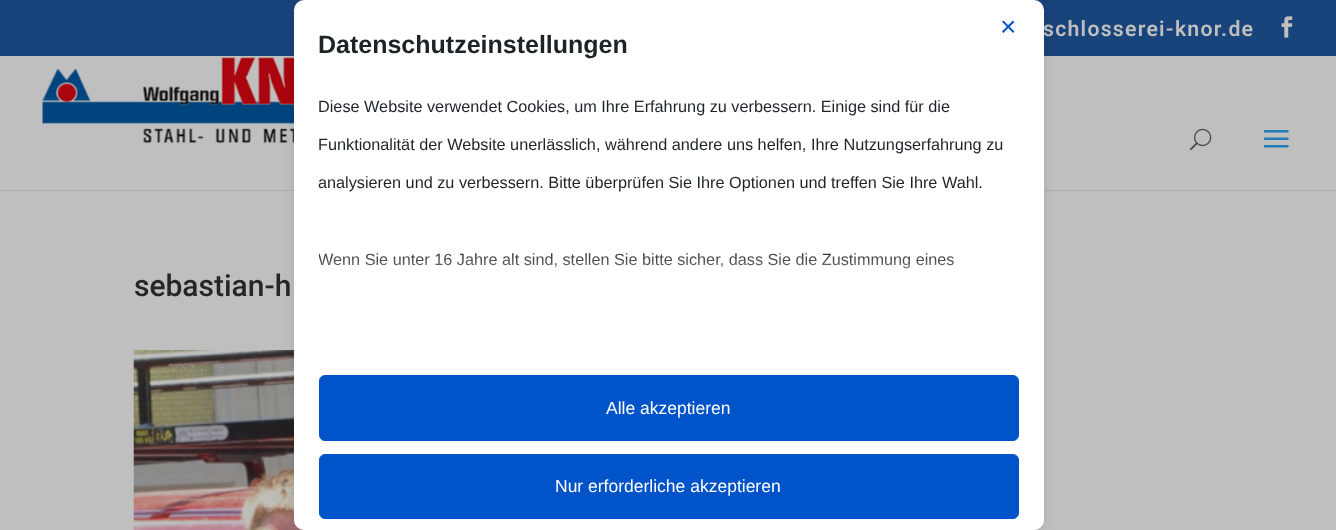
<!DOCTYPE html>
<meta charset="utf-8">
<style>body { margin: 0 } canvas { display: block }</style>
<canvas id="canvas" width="1336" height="530"></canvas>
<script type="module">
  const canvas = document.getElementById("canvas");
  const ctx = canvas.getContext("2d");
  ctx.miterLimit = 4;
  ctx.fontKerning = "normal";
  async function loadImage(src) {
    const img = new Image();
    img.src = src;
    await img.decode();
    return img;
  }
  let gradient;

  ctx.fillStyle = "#bfbfbf";
  ctx.fillRect(0, 0, 1336, 530);
  ctx.fillStyle = "#19447b";
  ctx.fillRect(0, 0, 1336, 56);
  ctx.letterSpacing = "1.25px";
  ctx.font = "600 21.25px Roboto";
  ctx.fillStyle = "#bfbfbf";
  ctx.fillText("schlosserei-knor.de", 1043, 36);
  ctx.drawImage(await loadImage("img1.png"), 1281, 16, 12, 22);
  ctx.fillStyle = "#adadad";
  ctx.fillRect(0, 190, 1336, 1);
  ctx.drawImage(await loadImage("img2.png"), 42, 57, 252, 87);
  ctx.drawImage(await loadImage("img3.png"), 1190, 128, 22, 23);
  ctx.drawImage(await loadImage("img4.png"), 1263, 130, 26, 18);
  ctx.letterSpacing = "0px";
  ctx.font = "500 30px Roboto";
  ctx.fillStyle = "#262626";
  ctx.fillText("sebastian-h", 134, 296);
  ctx.drawImage(await loadImage("img5.png"), 133, 350, 171, 180);
  ctx.fillStyle = "rgba(0, 0, 0, 0.1)";
  ctx.filter = "blur(6px)";
  ctx.beginPath();
  ctx.roundRect(294, 0, 750, 530, 10);
  ctx.fill();
  ctx.filter = "none";
  ctx.fillStyle = "#ffffff";
  ctx.beginPath();
  ctx.roundRect(294, 0, 750, 530, 10);
  ctx.fill();
  ctx.font = "28px Liberation Sans";
  ctx.fillStyle = "#0053c8";
  ctx.fillText("×", 1000, 36);
  ctx.font = "bold 25px Liberation Sans";
  ctx.fillStyle = "#1d2327";
  ctx.fillText("Datenschutzeinstellungen", 318, 53);
  ctx.font = "16.25px Liberation Sans";
  ctx.fillText("Diese Website verwendet Cookies, um Ihre Erfahrung zu verbessern. Einige sind für die", 318, 112);
  ctx.fillText("Funktionalität der Website unerlässlich, während andere uns helfen, Ihre Nutzungserfahrung zu", 318, 150);
  ctx.fillText("analysieren und zu verbessern. Bitte überprüfen Sie Ihre Optionen und treffen Sie Ihre Wahl.", 318, 188);
  ctx.save();
  ctx.beginPath();
  ctx.rect(319, 89, 700, 211);
  ctx.clip();
  ctx.fillText("Wenn Sie unter 16 Jahre alt sind, stellen Sie bitte sicher, dass Sie die Zustimmung eines", 318, 265);
  ctx.restore();
  gradient = ctx.createLinearGradient(669, 300, 669, 250);
  gradient.addColorStop(0, "#ffffff");
  gradient.addColorStop(1, "rgba(255, 255, 255, 0)");
  ctx.fillStyle = gradient;
  ctx.fillRect(319, 253, 635, 16);
  ctx.fillStyle = "#0053c8";
  ctx.beginPath();
  ctx.roundRect(319.5, 375.5, 699, 65, 5.5);
  ctx.fill();
  ctx.strokeStyle = "#0053c8";
  ctx.stroke();
  ctx.font = "17.5px Liberation Sans";
  ctx.fillStyle = "#ffffff";
  ctx.fillText("Alle akzeptieren", 606, 414);
  ctx.fillStyle = "#0053c8";
  ctx.beginPath();
  ctx.roundRect(319.5, 454.5, 699, 64, 5.5);
  ctx.fill();
  ctx.stroke();
  ctx.fillStyle = "#ffffff";
  ctx.fillText("Nur erforderliche akzeptieren", 555, 492);
</script>
